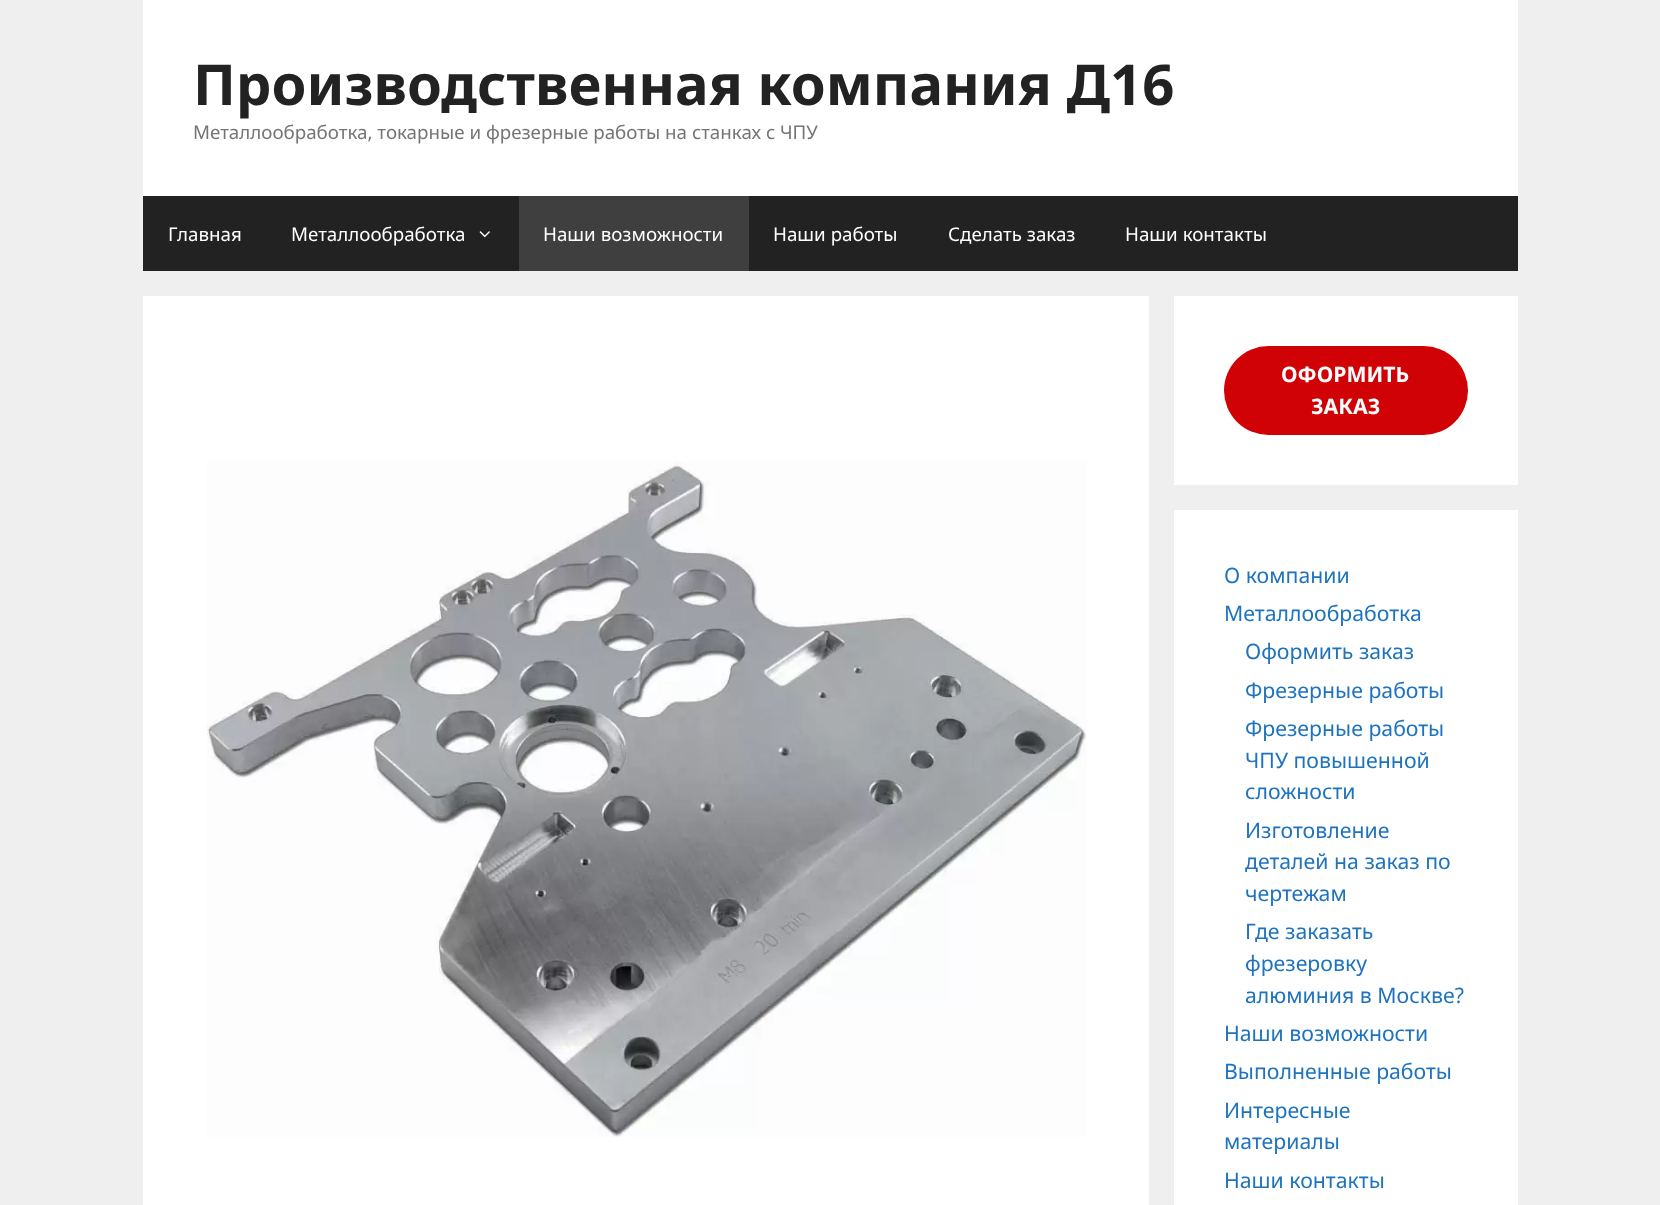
<!DOCTYPE html>
<meta charset="utf-8">
<style>body { margin: 0 } canvas { display: block }</style>
<canvas id="canvas" width="1660" height="1205"></canvas>
<script type="module">
  const canvas = document.getElementById("canvas");
  const ctx = canvas.getContext("2d");
  ctx.miterLimit = 4;
  ctx.fontKerning = "normal";
  async function loadImage(src) {
    const img = new Image();
    img.src = src;
    await img.decode();
    return img;
  }

  ctx.fillStyle = "#efefef";
  ctx.fillRect(0, 0, 1660, 1205);
  ctx.fillStyle = "#ffffff";
  ctx.fillRect(143, 0, 1375, 196);
  ctx.font = "bold 56.25px Noto Sans";
  ctx.fillStyle = "#222222";
  ctx.fillText("Производственная компания Д16", 193, 105);
  ctx.font = "18.75px Noto Sans";
  ctx.fillStyle = "#757575";
  ctx.fillText("Металлообработка, токарные и фрезерные работы на станках с ЧПУ", 193, 139);
  ctx.fillStyle = "#222222";
  ctx.fillRect(143, 196, 1375, 75);
  ctx.fillStyle = "#ffffff";
  ctx.fillText("Главная", 168, 241);
  ctx.fillText("Металлообработка", 291, 241);
  ctx.drawImage(await loadImage("img1.png"), 479, 231, 11, 7);
  ctx.fillStyle = "#3f3f3f";
  ctx.fillRect(519, 196, 230, 75);
  ctx.fillStyle = "#ffffff";
  ctx.fillText("Наши возможности", 543, 241);
  ctx.fillText("Наши работы", 773, 241);
  ctx.fillText("Сделать заказ", 948, 241);
  ctx.fillText("Наши контакты", 1125, 241);
  ctx.fillRect(143, 296, 1006, 909);
  ctx.drawImage(await loadImage("img2.png"), 206, 461, 881, 676);
  ctx.fillRect(1174, 296, 344, 189);
  ctx.fillStyle = "#d10206";
  ctx.beginPath();
  ctx.roundRect(1224, 346, 244, 89, 44.5);
  ctx.fill();
  ctx.font = "bold 21.25px Noto Sans";
  ctx.fillStyle = "#ffffff";
  ctx.fillText("ОФОРМИТЬ", 1281, 382);
  ctx.fillText("ЗАКАЗ", 1311, 414);
  ctx.fillRect(1174, 510, 344, 695);
  ctx.font = "21.25px Noto Sans";
  ctx.fillStyle = "#1e73be";
  ctx.fillText("О компании", 1224, 583);
  ctx.fillText("Металлообработка", 1224, 621);
  ctx.fillText("Оформить заказ", 1245, 659);
  ctx.fillText("Фрезерные работы", 1245, 698);
  ctx.fillText("Фрезерные работы", 1245, 736);
  ctx.fillText("ЧПУ повышенной", 1245, 768);
  ctx.fillText("сложности", 1245, 799);
  ctx.fillText("Изготовление", 1245, 838);
  ctx.fillText("деталей на заказ по", 1245, 869);
  ctx.fillText("чертежам", 1245, 901);
  ctx.fillText("Где заказать", 1245, 939);
  ctx.fillText("фрезеровку", 1245, 971);
  ctx.fillText("алюминия в Москве?", 1245, 1003);
  ctx.fillText("Наши возможности", 1224, 1041);
  ctx.fillText("Выполненные работы", 1224, 1079);
  ctx.fillText("Интересные", 1224, 1118);
  ctx.fillText("материалы", 1224, 1149);
  ctx.fillText("Наши контакты", 1224, 1188);
</script>
